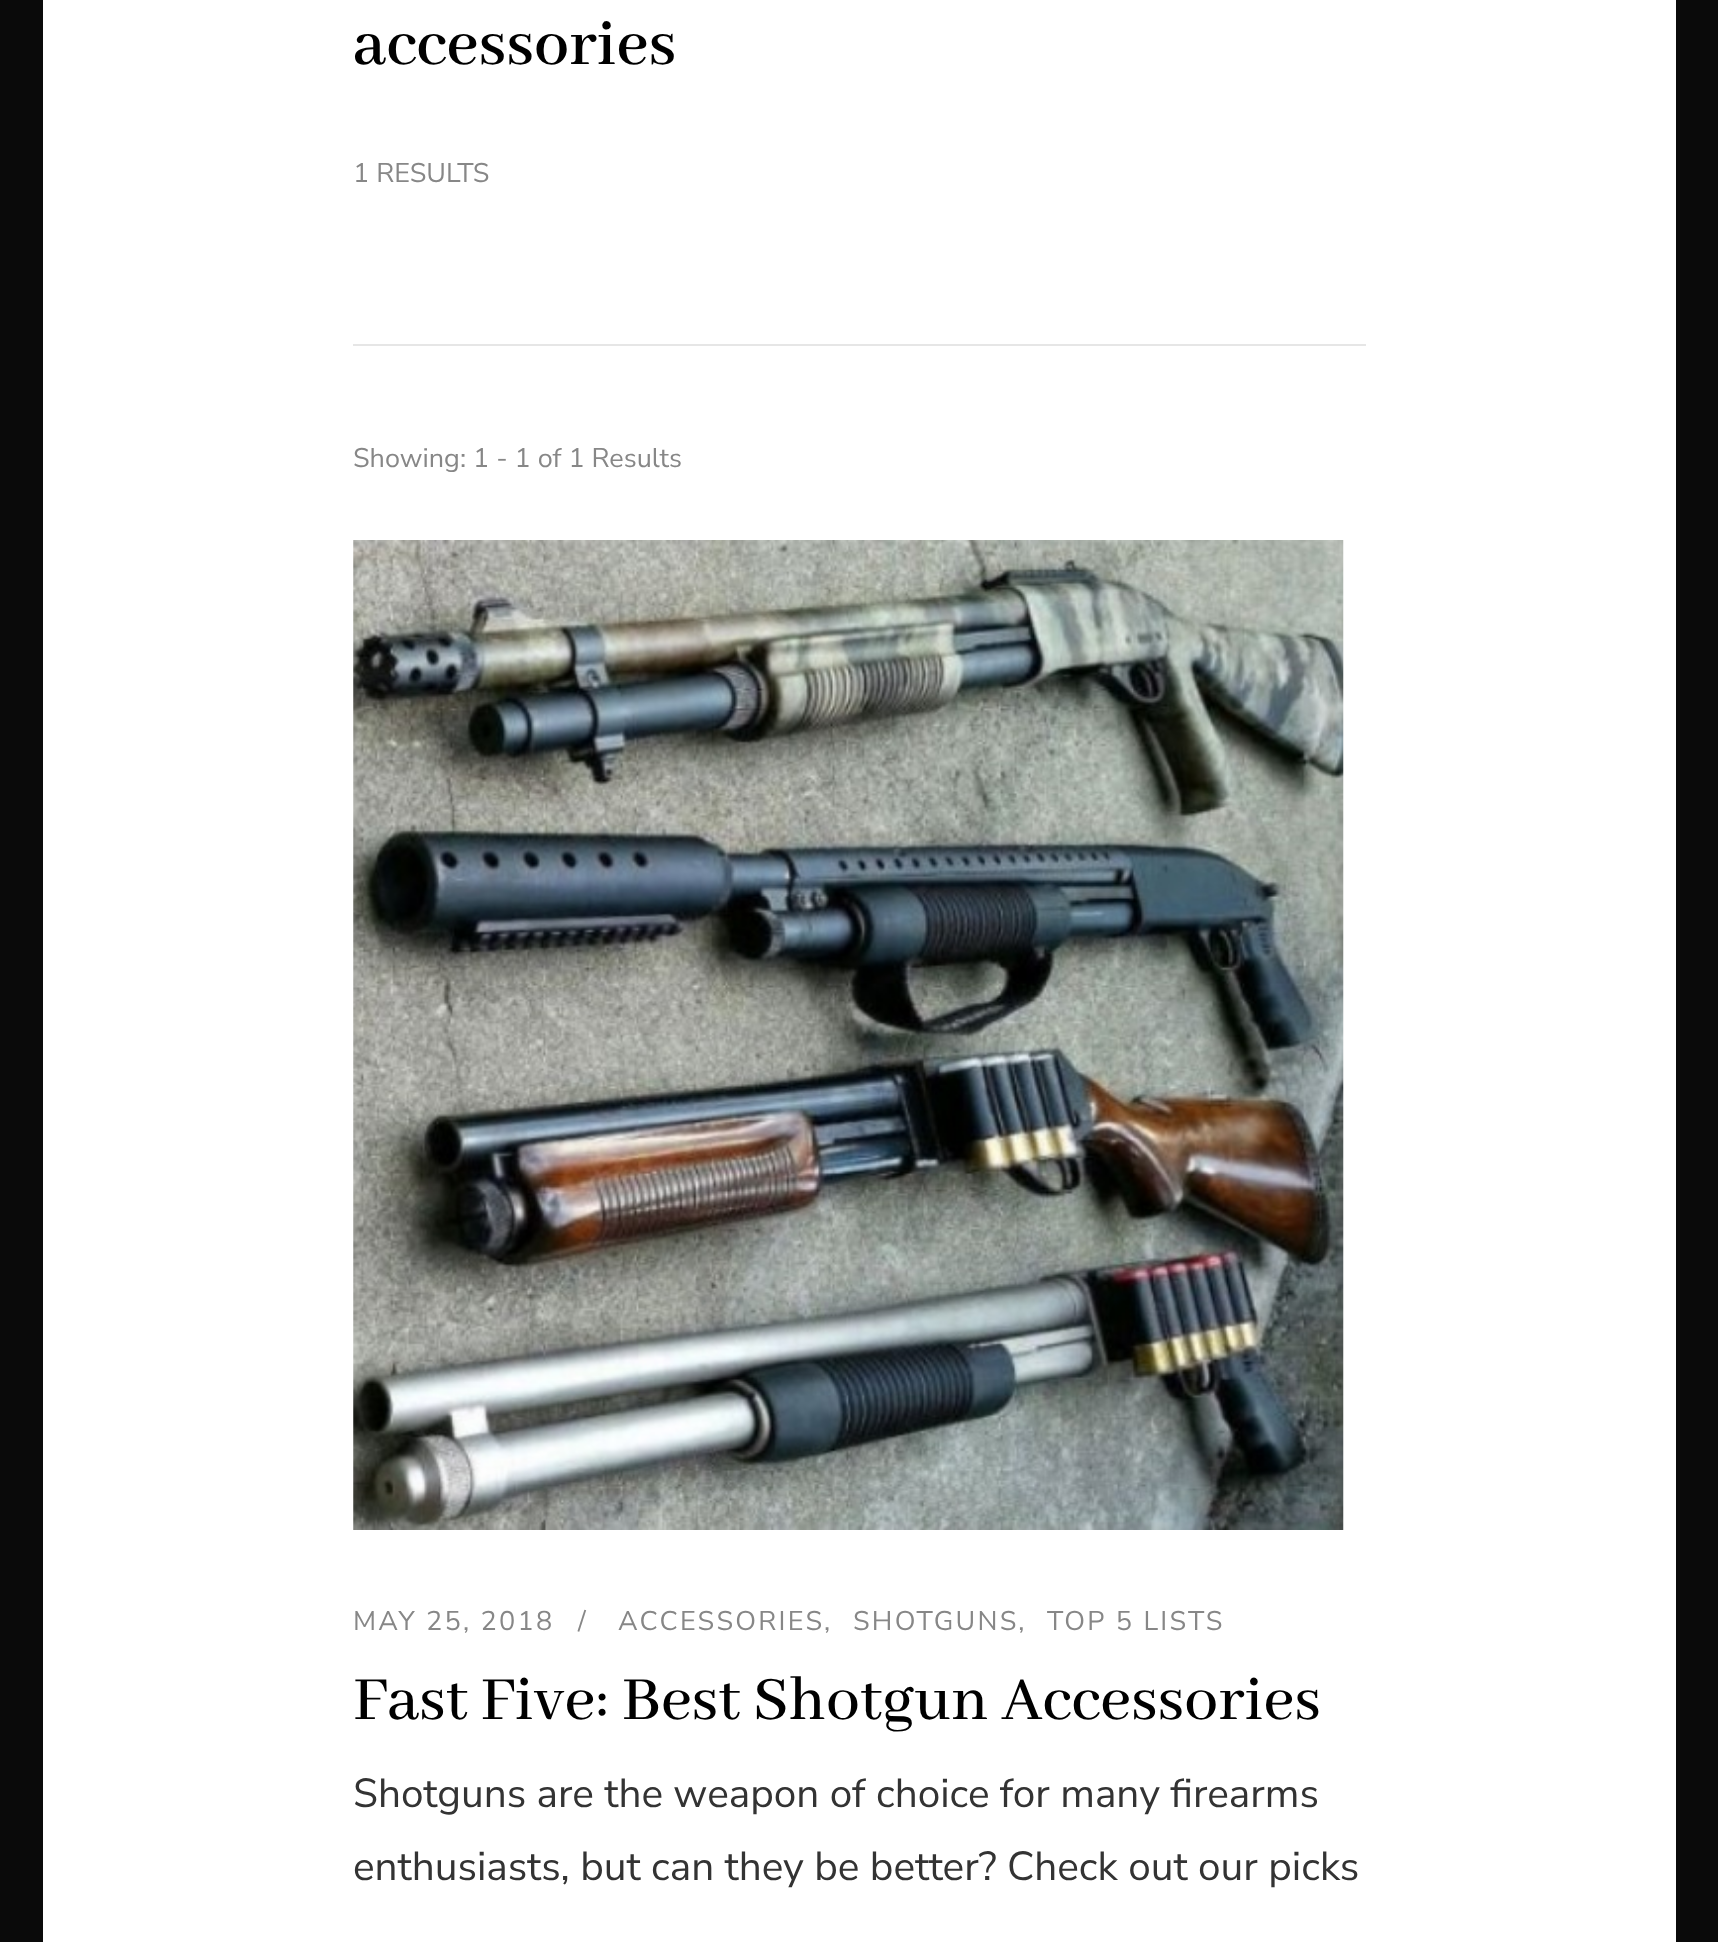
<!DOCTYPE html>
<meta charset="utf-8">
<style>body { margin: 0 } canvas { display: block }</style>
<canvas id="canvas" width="1718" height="1942"></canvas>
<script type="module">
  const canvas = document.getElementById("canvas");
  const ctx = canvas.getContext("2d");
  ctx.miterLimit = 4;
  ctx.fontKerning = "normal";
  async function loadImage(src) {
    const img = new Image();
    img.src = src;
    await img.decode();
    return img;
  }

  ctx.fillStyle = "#0a0a0a";
  ctx.fillRect(0, 0, 1718, 1942);
  ctx.fillStyle = "#ffffff";
  ctx.fillRect(43, 0, 1633, 1942);
  ctx.font = "600 69.75px Abhaya Libre SemiBold";
  ctx.fillStyle = "#000000";
  ctx.fillText("accessories", 353, 64);
  ctx.font = "27px Nunito Sans";
  ctx.fillStyle = "#878787";
  ctx.fillText("1 RESULTS", 353, 182);
  ctx.fillStyle = "#e6e6e6";
  ctx.fillRect(353, 344, 1013, 2);
  ctx.fillStyle = "#878787";
  ctx.fillText("Showing: 1 - 1 of 1 Results", 353, 467);
  ctx.drawImage(await loadImage("img1.png"), 353, 540, 991, 990);
  ctx.letterSpacing = "2.25px";
  ctx.fillText("MAY 25, 2018", 353, 1630);
  ctx.fillText("/", 578, 1630);
  ctx.fillText("ACCESSORIES,", 618, 1630);
  ctx.fillText("SHOTGUNS,", 853, 1630);
  ctx.fillText("TOP 5 LISTS", 1047, 1630);
  ctx.letterSpacing = "0px";
  ctx.font = "500 67.5px Abhaya Libre Medium";
  ctx.fillStyle = "#000000";
  ctx.fillText("Fast Five: Best Shotgun Accessories", 353, 1719);
  ctx.font = "40.5px Nunito Sans";
  ctx.fillStyle = "#333333";
  ctx.fillText("Shotguns are the weapon of choice for many firearms", 353, 1807);
  ctx.fillText("enthusiasts, but can they be better? Check out our picks", 353, 1880);
</script>
